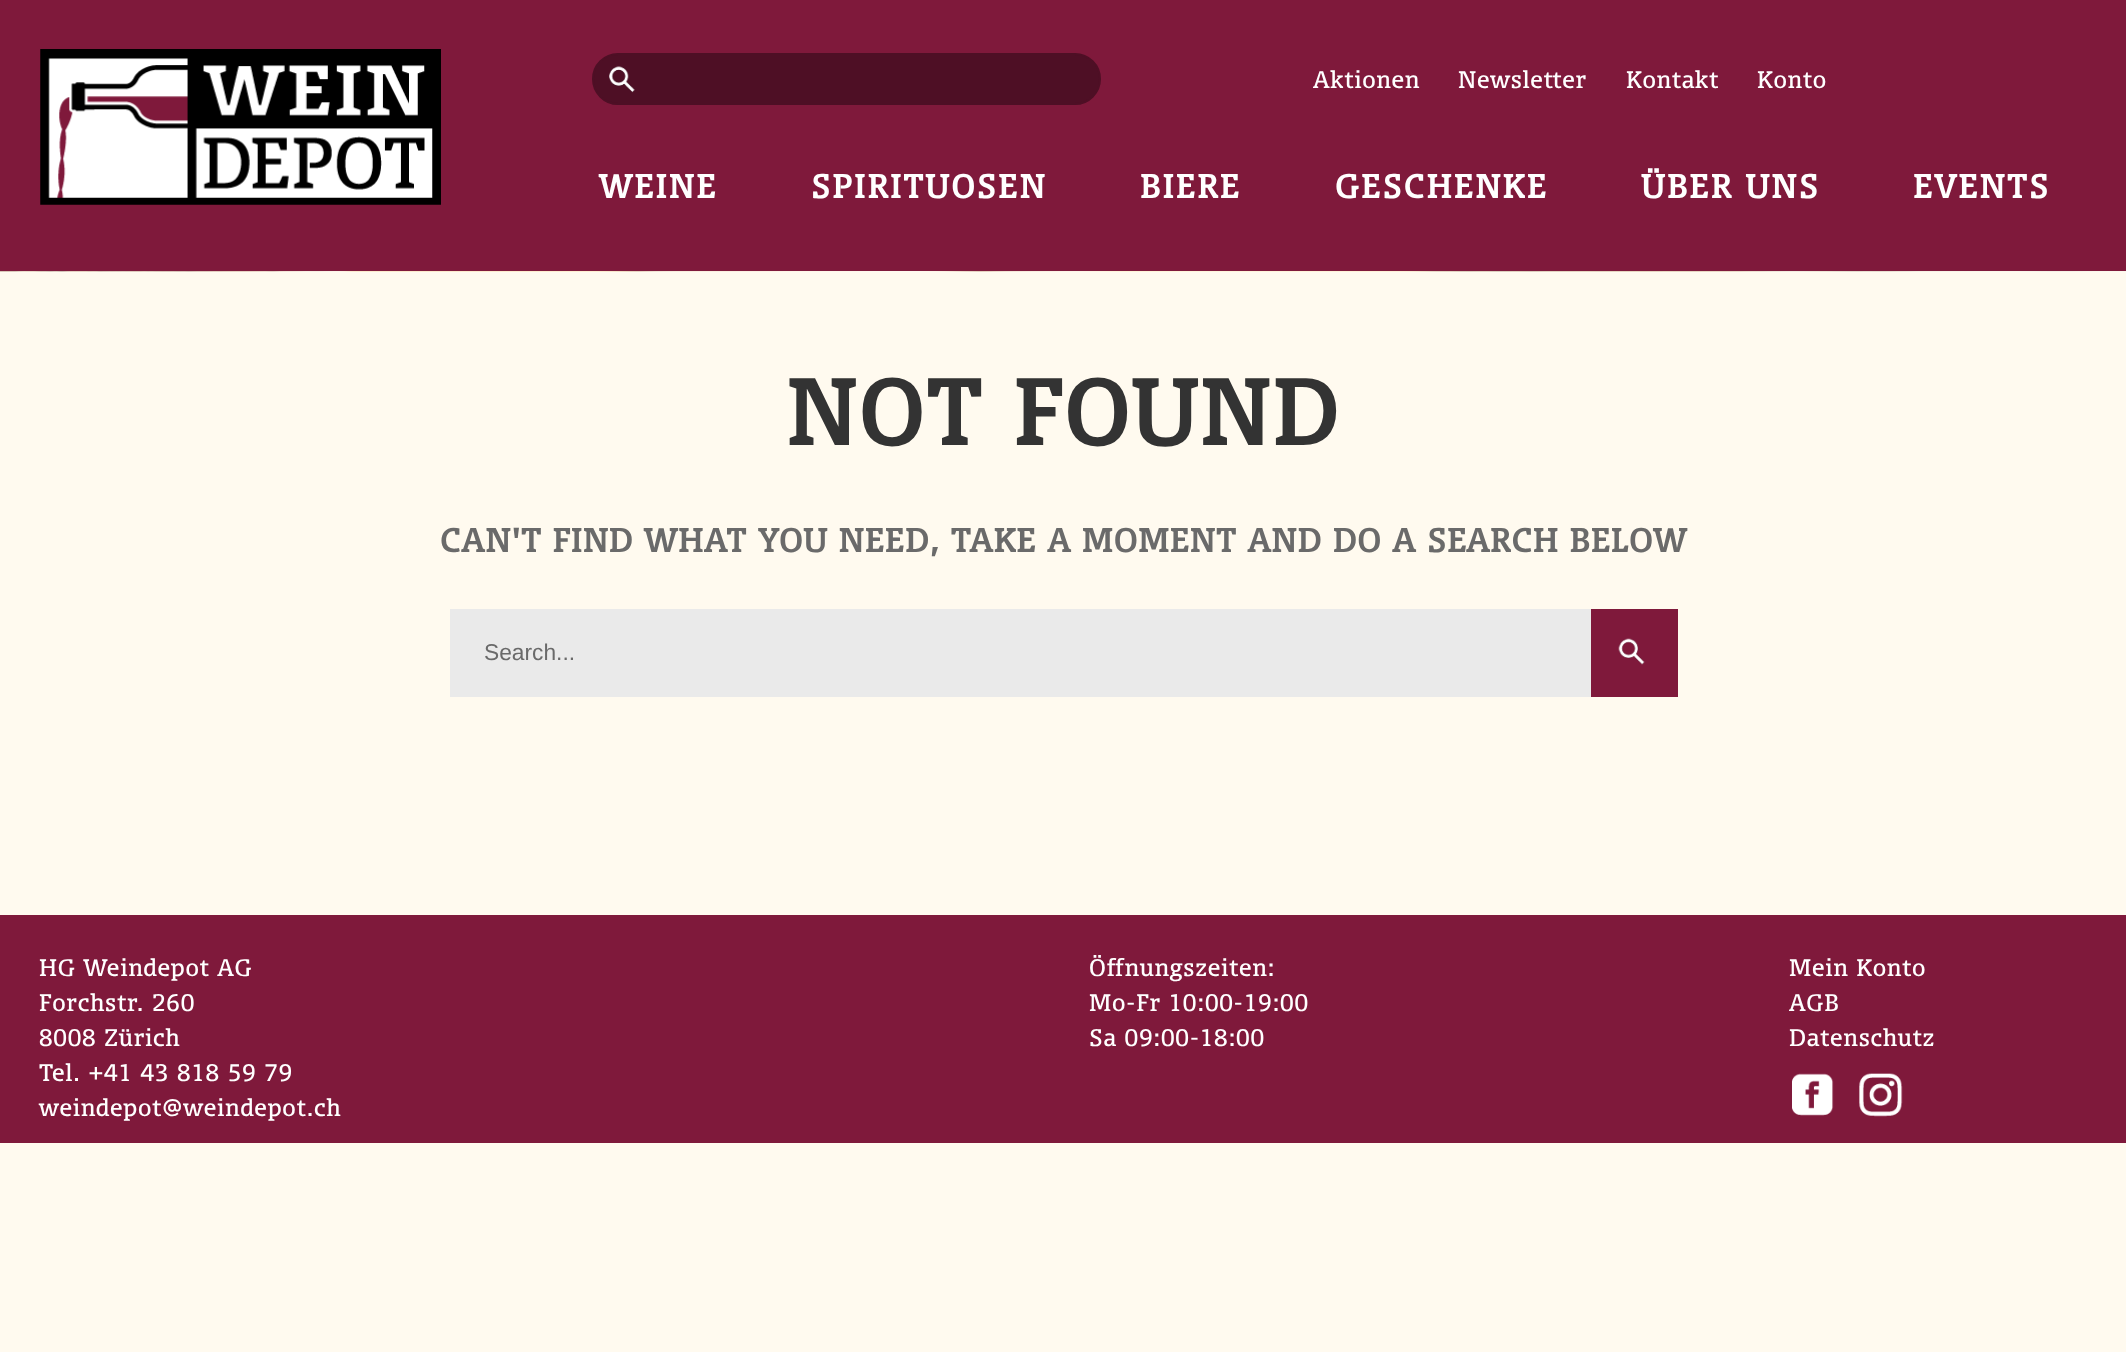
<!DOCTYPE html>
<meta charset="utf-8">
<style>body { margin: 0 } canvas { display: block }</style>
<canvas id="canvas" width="2126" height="1352"></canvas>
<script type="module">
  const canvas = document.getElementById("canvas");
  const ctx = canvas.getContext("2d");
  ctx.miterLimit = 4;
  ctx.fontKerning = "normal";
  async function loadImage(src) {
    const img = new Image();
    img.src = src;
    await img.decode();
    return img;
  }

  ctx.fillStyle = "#fffaef";
  ctx.fillRect(0, 0, 2126, 1352);
  ctx.drawImage(await loadImage("img1.png"), 0, 271, 2126, 1);
  ctx.fillStyle = "#7f193b";
  ctx.fillRect(0, 0, 2126, 271);
  ctx.fillStyle = "#4e0f25";
  ctx.beginPath();
  ctx.roundRect(593, 54, 507, 50, 25);
  ctx.fill();
  ctx.strokeStyle = "#4e0f25";
  ctx.lineWidth = 2;
  ctx.stroke();
  ctx.drawImage(await loadImage("img2.png"), 609, 66, 26, 27);
  ctx.letterSpacing = "0.7px";
  ctx.font = "22.75px 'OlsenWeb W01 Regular'";
  ctx.fillStyle = "#ffffff";
  ctx.fillText("Aktionen", 1313, 88);
  ctx.fillText("Newsletter", 1458, 88);
  ctx.fillText("Kontakt", 1626, 88);
  ctx.fillText("Konto", 1757, 88);
  ctx.drawImage(await loadImage("img3.png"), 40, 49, 401, 156);
  ctx.letterSpacing = "2.25px";
  ctx.font = "bold 31.5px 'OlsenWeb W01 Regular'";
  ctx.fillText("WEINE", 599, 198);
  ctx.fillText("SPIRITUOSEN", 811, 198);
  ctx.fillText("BIERE", 1140, 198);
  ctx.fillText("GESCHENKE", 1335, 198);
  ctx.fillText("ÜBER UNS", 1641, 198);
  ctx.fillText("EVENTS", 1913, 198);
  ctx.letterSpacing = "2.6px";
  ctx.font = "bold 87.5px 'OlsenWeb W01 Regular'";
  ctx.fillStyle = "#333333";
  ctx.fillText("NOT FOUND", 786, 445);
  ctx.letterSpacing = "0.95px";
  ctx.font = "bold 31.5px 'OlsenWeb W01 Regular'";
  ctx.fillStyle = "#6a6a6a";
  ctx.fillText("CAN'T FIND WHAT YOU NEED, TAKE A MOMENT AND DO A SEARCH BELOW", 440, 552);
  ctx.fillStyle = "#eaeaea";
  ctx.fillRect(450, 609, 1141, 88);
  ctx.letterSpacing = "0px";
  ctx.font = "22.75px Liberation Sans";
  ctx.fillStyle = "#6a6a6a";
  ctx.fillText("Search...", 484, 660);
  ctx.fillStyle = "#7f193b";
  ctx.fillRect(1591, 609, 87, 88);
  ctx.drawImage(await loadImage("img4.png"), 1618, 638, 27, 27);
  ctx.fillRect(0, 915, 2126, 228);
  ctx.letterSpacing = "0.7px";
  ctx.font = "22.75px 'OlsenWeb W01 Regular'";
  ctx.fillStyle = "#ffffff";
  ctx.fillText("HG Weindepot AG", 39, 976);
  ctx.fillText("Forchstr. 260", 39, 1011);
  ctx.fillText("8008 Zürich", 39, 1046);
  ctx.fillText("Tel. +41 43 818 59 79", 39, 1081);
  ctx.fillText("weindepot@weindepot.ch", 39, 1116);
  ctx.fillText("Öffnungszeiten:", 1089, 976);
  ctx.fillText("Mo-Fr 10:00-19:00", 1089, 1011);
  ctx.fillText("Sa 09:00-18:00", 1089, 1046);
  ctx.fillText("Mein Konto", 1789, 976);
  ctx.fillText("AGB", 1789, 1011);
  ctx.fillText("Datenschutz", 1789, 1046);
  ctx.drawImage(await loadImage("img5.png"), 1792, 1073, 42, 43);
  ctx.drawImage(await loadImage("img6.png"), 1859, 1073, 44, 44);
</script>
